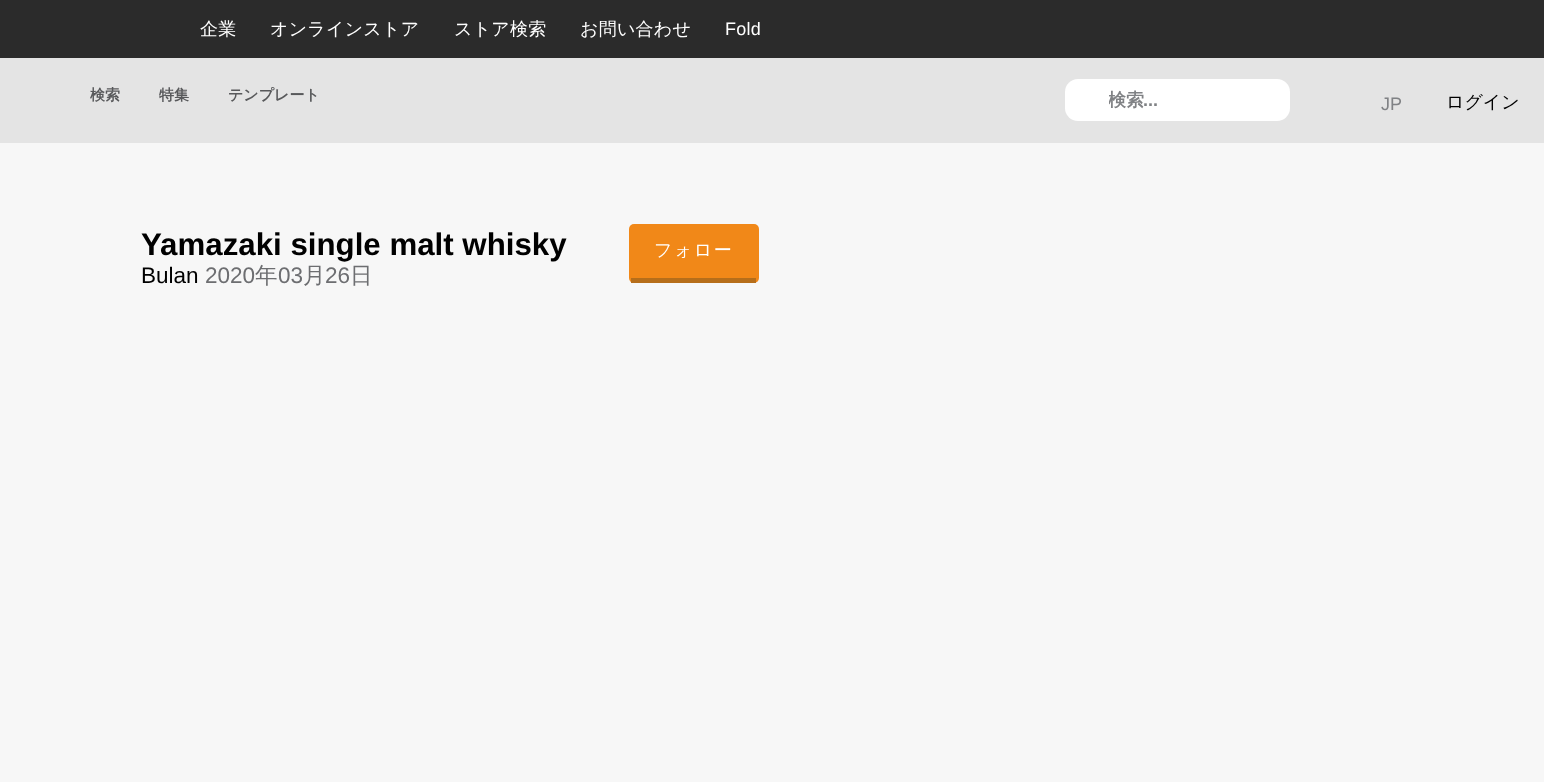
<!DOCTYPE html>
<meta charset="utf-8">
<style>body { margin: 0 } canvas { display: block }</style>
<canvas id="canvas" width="1544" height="782"></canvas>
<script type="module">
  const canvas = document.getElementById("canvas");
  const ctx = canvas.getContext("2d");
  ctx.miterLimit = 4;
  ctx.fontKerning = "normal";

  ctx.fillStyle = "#f7f7f7";
  ctx.fillRect(0, 0, 1544, 782);
  ctx.fillStyle = "#e4e4e4";
  ctx.fillRect(0, 58, 1544, 85);
  ctx.fillStyle = "#2b2b2b";
  ctx.fillRect(0, 0, 1544, 58);
  ctx.letterSpacing = "0.25px";
  ctx.font = "500 18px WenQuanYi Zen Hei";
  ctx.fillStyle = "#ffffff";
  ctx.fillText("企業", 200, 35);
  ctx.fillText("オンラインストア", 270, 35);
  ctx.fillText("ストア検索", 454, 35);
  ctx.fillText("お問い合わせ", 580, 35);
  ctx.font = "18px Liberation Sans";
  ctx.fillText("Fold", 725, 35);
  ctx.letterSpacing = "0px";
  ctx.font = "bold 15px WenQuanYi Zen Hei";
  ctx.fillStyle = "#58595b";
  ctx.fillText("検索", 90, 100);
  ctx.fillText("特集", 159, 100);
  ctx.fillText("テンプレート", 228, 100);
  ctx.fillStyle = "#ffffff";
  ctx.beginPath();
  ctx.roundRect(1065, 79, 225, 42, 13);
  ctx.fill();
  ctx.save();
  ctx.beginPath();
  ctx.rect(1109, 90, 160, 23);
  ctx.clip();
  ctx.font = "bold 18px WenQuanYi Zen Hei";
  ctx.fillStyle = "#808285";
  ctx.fillText("検索", 1108, 106);
  ctx.restore();
  ctx.font = "bold 18px Liberation Sans";
  ctx.fillStyle = "#808285";
  ctx.fillText("...", 1143, 106);
  ctx.font = "18px Liberation Sans";
  ctx.fillText("JP", 1381, 110);
  ctx.font = "500 18px WenQuanYi Zen Hei";
  ctx.fillStyle = "#000000";
  ctx.fillText("ログイン", 1446, 108);
  ctx.font = "bold 31.25px Liberation Sans";
  ctx.fillText("Yamazaki single malt whisky", 141, 255);
  ctx.font = "22.5px Liberation Sans";
  ctx.fillText("Bulan", 141, 283);
  ctx.fillStyle = "#6d6e71";
  ctx.fillText("2020", 205, 283);
  ctx.font = "500 22.5px WenQuanYi Zen Hei";
  ctx.fillText("年", 255, 283);
  ctx.font = "22.5px Liberation Sans";
  ctx.fillText("03", 278, 283);
  ctx.font = "500 22.5px WenQuanYi Zen Hei";
  ctx.fillText("月", 303, 283);
  ctx.font = "22.5px Liberation Sans";
  ctx.fillText("26", 325, 283);
  ctx.font = "500 22.5px WenQuanYi Zen Hei";
  ctx.fillText("日", 350, 283);
  ctx.fillStyle = "#f18818";
  ctx.beginPath();
  ctx.roundRect(629, 224, 130, 59, 5);
  ctx.fill();
  ctx.fillStyle = "#b66e1a";
  ctx.fillRect(631, 278, 125, 5);
  ctx.letterSpacing = "1.5px";
  ctx.font = "500 18px WenQuanYi Zen Hei";
  ctx.fillStyle = "#ffffff";
  ctx.fillText("フォロー", 654, 256);
</script>
